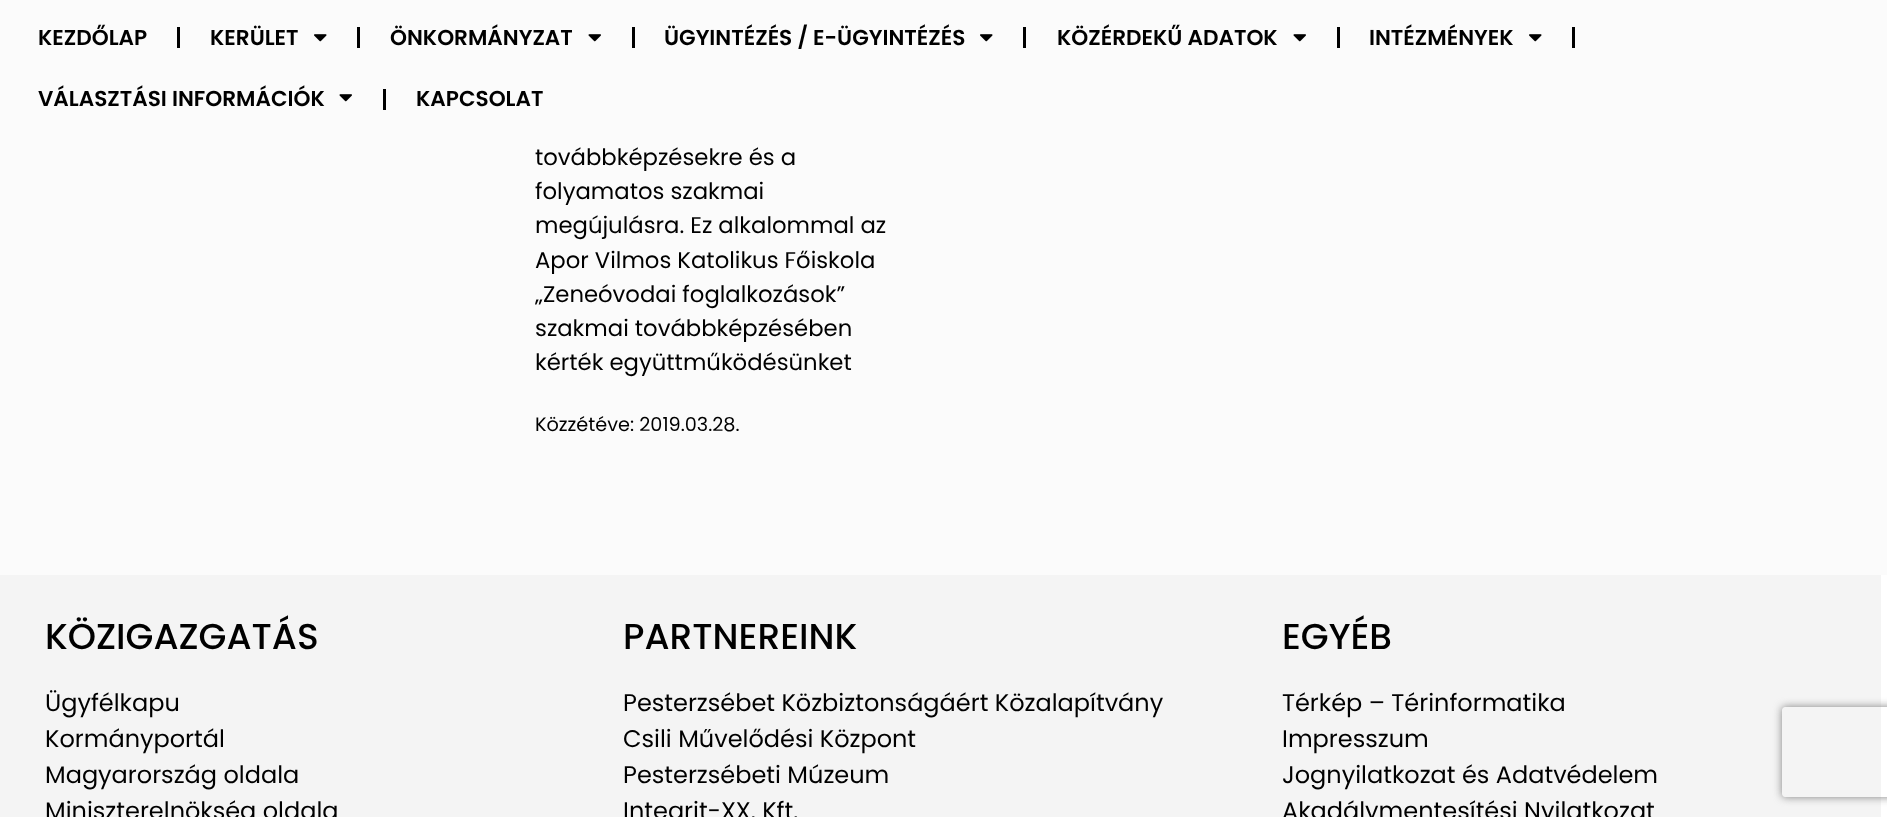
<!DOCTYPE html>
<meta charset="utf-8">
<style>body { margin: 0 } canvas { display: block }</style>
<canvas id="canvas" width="1887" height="817"></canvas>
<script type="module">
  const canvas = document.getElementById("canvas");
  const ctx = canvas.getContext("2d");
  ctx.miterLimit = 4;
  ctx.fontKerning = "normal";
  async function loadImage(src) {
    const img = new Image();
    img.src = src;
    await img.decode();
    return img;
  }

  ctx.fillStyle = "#ffffff";
  ctx.fillRect(0, 0, 1887, 817);
  ctx.fillStyle = "#fbfbfb";
  ctx.fillRect(0, 0, 1887, 575);
  ctx.font = "600 21.6px Poppins";
  ctx.fillStyle = "#000000";
  ctx.fillText("KEZDŐLAP", 38, 45);
  ctx.fillRect(177, 27, 3, 21);
  ctx.fillText("KERÜLET", 210, 45);
  ctx.drawImage(await loadImage("img1.png"), 314, 34, 13, 8);
  ctx.fillRect(357, 27, 3, 21);
  ctx.fillText("ÖNKORMÁNYZAT", 390, 45);
  ctx.drawImage(await loadImage("img2.png"), 588, 34, 13, 8);
  ctx.fillRect(632, 27, 3, 21);
  ctx.fillText("ÜGYINTÉZÉS / E-ÜGYINTÉZÉS", 664, 45);
  ctx.drawImage(await loadImage("img1.png"), 980, 34, 13, 8);
  ctx.fillRect(1023, 27, 3, 21);
  ctx.fillText("KÖZÉRDEKŰ ADATOK", 1057, 45);
  ctx.drawImage(await loadImage("img2.png"), 1293, 34, 13, 8);
  ctx.fillRect(1337, 27, 3, 21);
  ctx.fillText("INTÉZMÉNYEK", 1369, 45);
  ctx.drawImage(await loadImage("img1.png"), 1529, 34, 13, 8);
  ctx.fillRect(1572, 27, 3, 21);
  ctx.fillText("VÁLASZTÁSI INFORMÁCIÓK", 38, 106);
  ctx.drawImage(await loadImage("img2.png"), 339, 94, 13, 8);
  ctx.fillRect(383, 89, 3, 21);
  ctx.fillText("KAPCSOLAT", 416, 106);
  ctx.font = "22.75px Poppins";
  ctx.fillText("továbbképzésekre és a", 535, 165);
  ctx.fillText("folyamatos szakmai", 535, 199);
  ctx.fillText("megújulásra. Ez alkalommal az", 535, 233);
  ctx.fillText("Apor Vilmos Katolikus Főiskola", 535, 268);
  ctx.fillText("„Zeneóvodai foglalkozások”", 535, 302);
  ctx.fillText("szakmai továbbképzésében", 535, 336);
  ctx.fillText("kérték együttműködésünket", 535, 370);
  ctx.font = "19.25px Poppins";
  ctx.fillText("Közzétéve: 2019.03.28.", 535, 431);
  ctx.fillStyle = "#f4f4f4";
  ctx.fillRect(0, 575, 1881, 242);
  ctx.font = "500 36px Poppins";
  ctx.fillStyle = "#000000";
  ctx.fillText("KÖZIGAZGATÁS", 45, 649);
  ctx.font = "24px Poppins";
  ctx.fillText("Ügyfélkapu", 45, 711);
  ctx.fillText("Kormányportál", 45, 747);
  ctx.fillText("Magyarország oldala", 45, 783);
  ctx.fillText("Miniszterelnökség oldala", 45, 819);
  ctx.font = "500 36px Poppins";
  ctx.fillText("PARTNEREINK", 623, 649);
  ctx.font = "24px Poppins";
  ctx.fillText("Pesterzsébet Közbiztonságáért Közalapítvány", 623, 711);
  ctx.fillText("Csili Művelődési Központ", 623, 747);
  ctx.fillText("Pesterzsébeti Múzeum", 623, 783);
  ctx.fillText("Integrit-XX. Kft.", 623, 819);
  ctx.font = "500 36px Poppins";
  ctx.fillText("EGYÉB", 1282, 649);
  ctx.font = "24px Poppins";
  ctx.fillText("Térkép – Térinformatika", 1282, 711);
  ctx.fillText("Impresszum", 1282, 747);
  ctx.fillText("Jognyilatkozat és Adatvédelem", 1282, 783);
  ctx.fillText("Akadálymentesítési Nyilatkozat", 1282, 819);
  ctx.save();
  ctx.beginPath();
  ctx.moveTo(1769, 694);
  ctx.lineTo(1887, 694);
  ctx.lineTo(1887, 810);
  ctx.lineTo(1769, 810);
  ctx.closePath();
  ctx.moveTo(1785, 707);
  ctx.lineTo(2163, 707);
  ctx.bezierCurveTo(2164.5, 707, 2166, 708.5, 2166, 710);
  ctx.lineTo(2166, 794);
  ctx.bezierCurveTo(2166, 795.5, 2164.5, 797, 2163, 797);
  ctx.lineTo(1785, 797);
  ctx.bezierCurveTo(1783.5, 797, 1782, 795.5, 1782, 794);
  ctx.lineTo(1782, 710);
  ctx.bezierCurveTo(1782, 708.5, 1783.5, 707, 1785, 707);
  ctx.closePath();
  ctx.clip("evenodd");
  ctx.fillStyle = "#808080";
  ctx.filter = "blur(4px)";
  ctx.beginPath();
  ctx.roundRect(1782, 707, 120, 90, 3);
  ctx.fill();
  ctx.filter = "none";
  ctx.restore();
</script>
